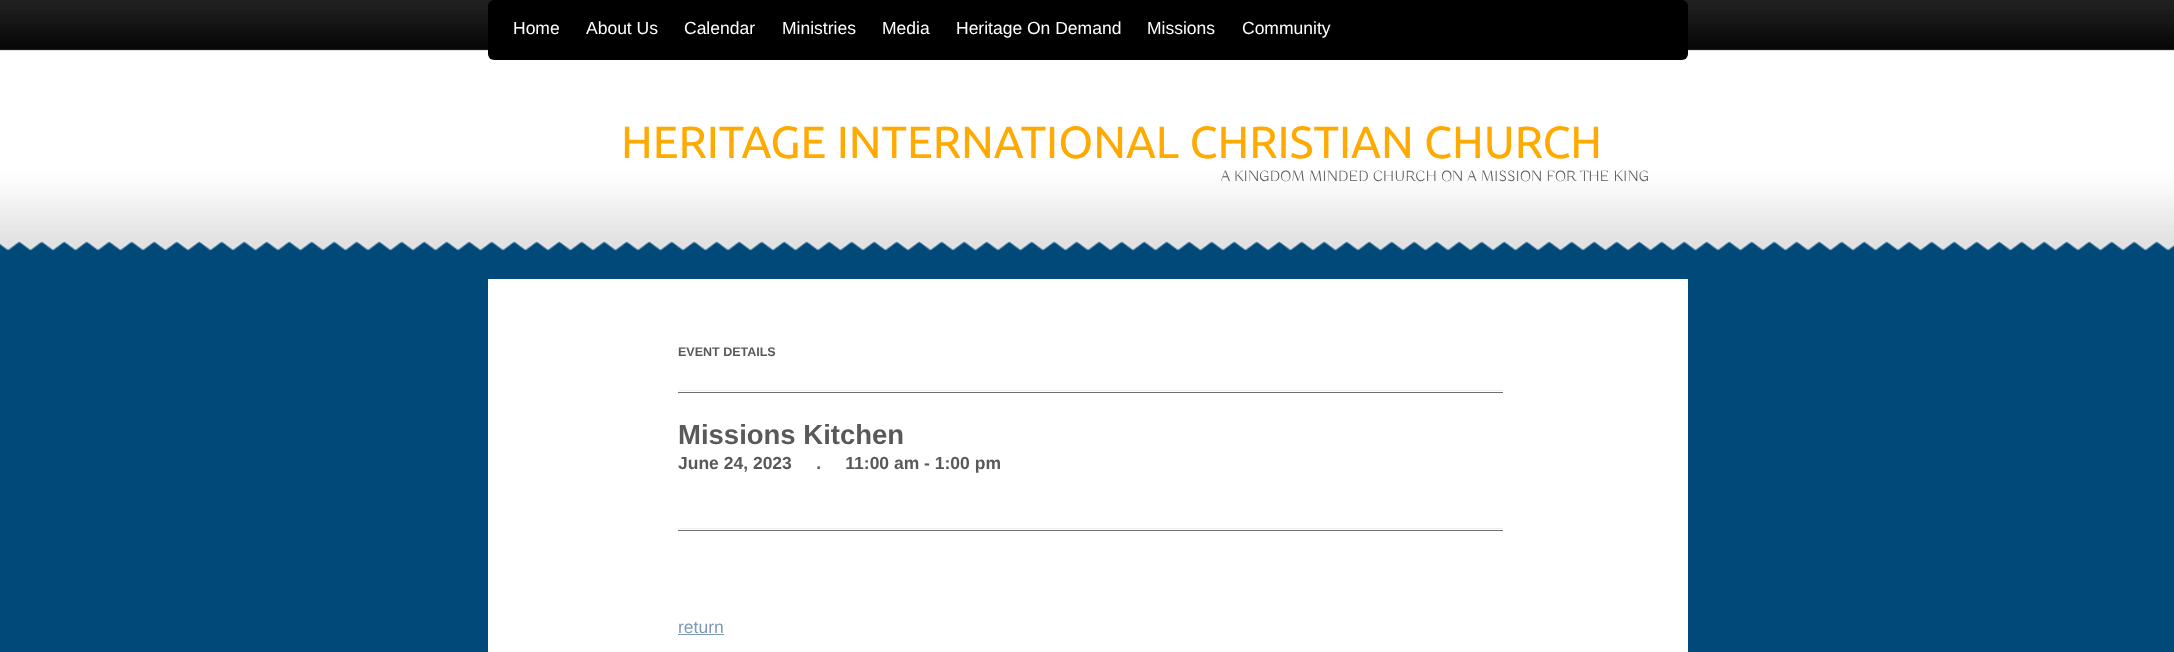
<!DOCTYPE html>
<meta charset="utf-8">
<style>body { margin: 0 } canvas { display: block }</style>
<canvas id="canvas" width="2174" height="652"></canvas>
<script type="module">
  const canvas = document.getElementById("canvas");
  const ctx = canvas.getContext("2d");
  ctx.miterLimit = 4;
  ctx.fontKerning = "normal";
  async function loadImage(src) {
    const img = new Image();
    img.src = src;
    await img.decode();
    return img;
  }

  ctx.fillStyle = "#ffffff";
  ctx.fillRect(0, 0, 2174, 652);
  ctx.drawImage(await loadImage("img1.png"), 0, 0, 2174, 652);
  ctx.fillStyle = "#000000";
  ctx.beginPath();
  ctx.roundRect(488, 0, 1200, 60, 6);
  ctx.fill();
  ctx.font = "17.5px Liberation Sans";
  ctx.fillStyle = "#ffffff";
  ctx.fillText("Home", 513, 34);
  ctx.fillText("About Us", 586, 34);
  ctx.fillText("Calendar", 684, 34);
  ctx.fillText("Ministries", 782, 34);
  ctx.fillText("Media", 882, 34);
  ctx.fillText("Heritage On Demand", 956, 34);
  ctx.fillText("Missions", 1147, 34);
  ctx.fillText("Community", 1242, 34);
  ctx.font = "45px Ubuntu";
  ctx.fillStyle = "#ffaa00";
  ctx.fillText("HERITAGE INTERNATIONAL CHRISTIAN CHURCH", 621, 158);
  ctx.font = "15px Buda";
  ctx.fillStyle = "#595959";
  ctx.fillText("A KINGDOM MINDED CHURCH ON A MISSION FOR THE KING", 1221, 181);
  ctx.fillStyle = "#ffffff";
  ctx.fillRect(488, 279, 1200, 373);
  ctx.font = "bold 12.5px Liberation Sans";
  ctx.fillStyle = "#595959";
  ctx.fillText("EVENT DETAILS", 678, 356);
  ctx.fillStyle = "#717171";
  ctx.fillRect(678, 392, 825, 1);
  ctx.fillStyle = "#eeeeee";
  ctx.fillRect(678, 390, 825, 1);
  ctx.font = "bold 27.5px Liberation Sans";
  ctx.fillStyle = "#595959";
  ctx.fillText("Missions Kitchen", 678, 444);
  ctx.font = "bold 17.5px Liberation Sans";
  ctx.fillText("June 24, 2023     .     11:00 am - 1:00 pm", 678, 469);
  ctx.fillStyle = "#717171";
  ctx.fillRect(678, 530, 825, 1);
  ctx.fillStyle = "#eeeeee";
  ctx.fillRect(678, 528, 825, 1);
  ctx.font = "17.5px Liberation Sans";
  ctx.fillStyle = "#7e9ab8";
  ctx.fillText("return", 678, 633);
  ctx.fillRect(678, 634, 46, 1);
</script>
